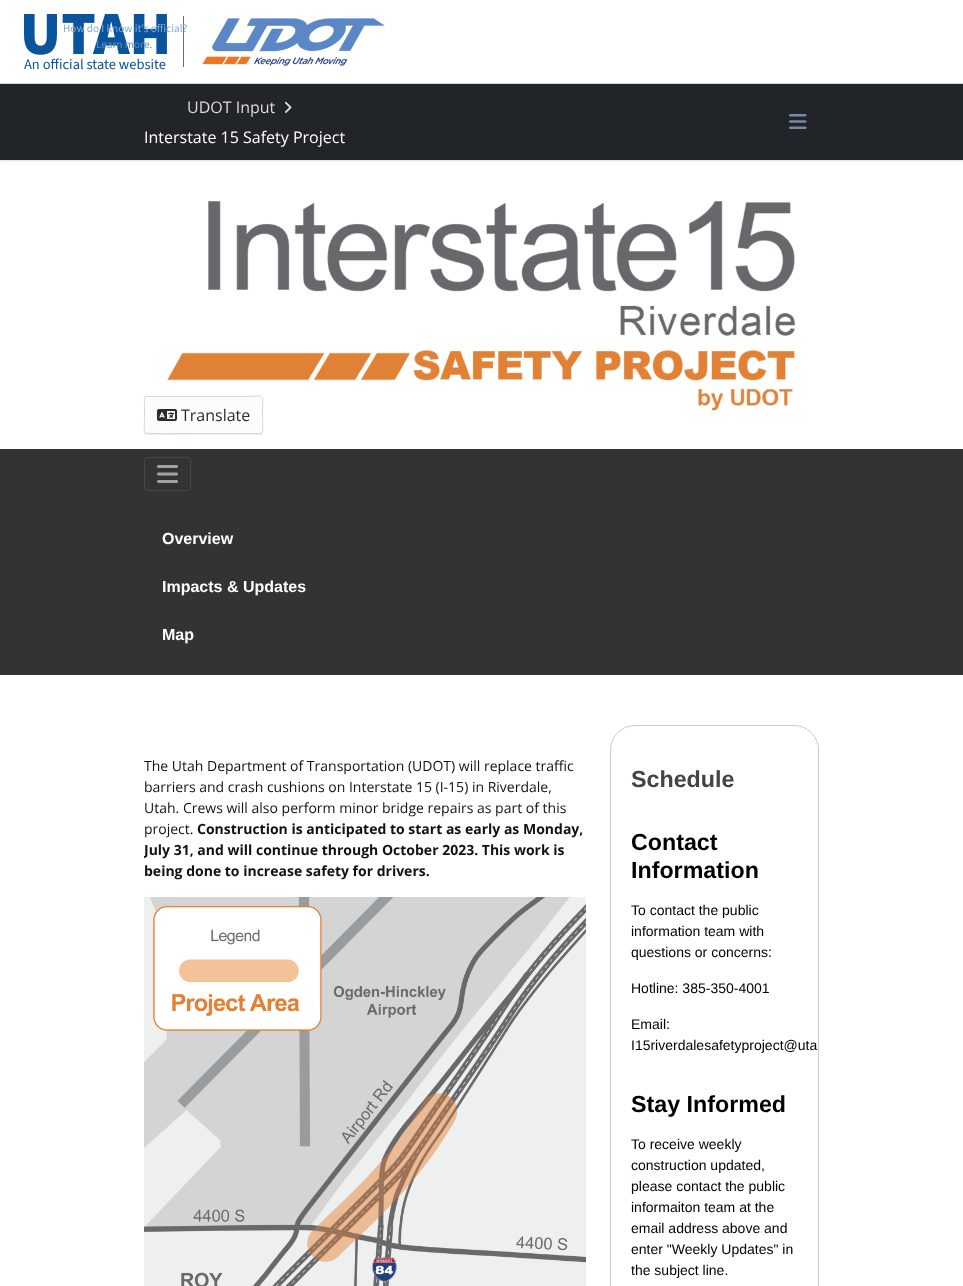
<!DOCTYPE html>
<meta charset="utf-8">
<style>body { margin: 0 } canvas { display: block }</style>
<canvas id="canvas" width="963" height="1286"></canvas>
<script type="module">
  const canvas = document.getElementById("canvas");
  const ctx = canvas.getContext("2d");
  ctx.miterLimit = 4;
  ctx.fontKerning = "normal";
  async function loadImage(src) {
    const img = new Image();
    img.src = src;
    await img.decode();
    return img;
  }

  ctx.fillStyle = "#ffffff";
  ctx.fillRect(0, 0, 963, 1286);
  ctx.fillStyle = "#f2f2f2";
  ctx.fillRect(0, 160, 963, 1);
  ctx.fillStyle = "rgba(0, 0, 0, 0.05)";
  ctx.filter = "blur(1px)";
  ctx.beginPath();
  ctx.rect(0, 86, 963, 76);
  ctx.fill();
  ctx.filter = "none";
  ctx.fillStyle = "#d7d7d7";
  ctx.fillRect(0, 83, 963, 1);
  ctx.fillStyle = "#707070";
  ctx.fillRect(183, 16, 1, 51);
  ctx.drawImage(await loadImage("img1.png"), 202, 18, 183, 48);
  ctx.drawImage(await loadImage("img2.png"), 24, 14, 143, 41);
  ctx.font = "11.25px 'Source Sans 3'";
  ctx.fillStyle = "#86aacd";
  ctx.fillText("How do I know it's official?", 63, 32);
  ctx.fillStyle = "#6191c0";
  ctx.fillText("Learn more.", 96, 48);
  ctx.font = "14.5px 'Source Sans 3'";
  ctx.fillStyle = "#09549c";
  ctx.fillText("An official state website", 24, 69);
  ctx.fillStyle = "#212529";
  ctx.fillRect(0, 84, 963, 76);
  ctx.font = "16px Open Sans";
  ctx.fillStyle = "#dbdbdb";
  ctx.fillText("UDOT Input", 187, 113);
  ctx.drawImage(await loadImage("img3.png"), 284, 101, 8, 12);
  ctx.fillStyle = "#ffffff";
  ctx.fillText("Interstate 15 Safety Project", 144, 143);
  ctx.drawImage(await loadImage("img4.png"), 789, 114, 18, 15);
  ctx.drawImage(await loadImage("img5.png"), 167, 201, 629, 210);
  ctx.fillStyle = "rgba(90, 90, 90, 0.1)";
  ctx.filter = "blur(0.5px)";
  ctx.beginPath();
  ctx.roundRect(144, 397, 119, 38, 2);
  ctx.fill();
  ctx.filter = "none";
  ctx.fillStyle = "#fcfcfd";
  ctx.beginPath();
  ctx.roundRect(144, 396, 119, 38, 2);
  ctx.fill();
  ctx.beginPath();
  ctx.moveTo(262, 433);
  ctx.lineTo(261, 433.5);
  ctx.lineTo(184.5, 433.5);
  ctx.bezierCurveTo(181.5, 433.5, 146, 434, 145, 433);
  ctx.strokeStyle = "#cbd5dd";
  ctx.stroke();
  ctx.beginPath();
  ctx.moveTo(145, 433);
  ctx.bezierCurveTo(143.5, 431.5, 144.5, 422.5, 144.5, 420.5);
  ctx.lineTo(144.5, 403.5);
  ctx.bezierCurveTo(144.5, 401, 143.5, 396.5, 146, 396.5);
  ctx.lineTo(242, 396.5);
  ctx.bezierCurveTo(267.5, 396.5, 262.5, 391, 262.5, 415);
  ctx.bezierCurveTo(262.5, 417.5, 263.5, 431.5, 262, 433);
  ctx.strokeStyle = "#d2dae1";
  ctx.stroke();
  ctx.drawImage(await loadImage("img6.png"), 157, 409, 20, 12);
  ctx.fillStyle = "#2d2d2d";
  ctx.fillText("Translate", 181, 421);
  ctx.fillStyle = "#333333";
  ctx.fillRect(0, 449, 963, 226);
  ctx.beginPath();
  ctx.roundRect(144.5, 457.5, 46, 33, 3.5);
  ctx.strokeStyle = "#474747";
  ctx.stroke();
  ctx.drawImage(await loadImage("img7.png"), 157, 465, 21, 18);
  ctx.font = "bold 16px Liberation Sans";
  ctx.fillStyle = "#ffffff";
  ctx.fillText("Overview", 162, 544);
  ctx.fillText("Impacts & Updates", 162, 592);
  ctx.fillText("Map", 162, 640);
  ctx.font = "14px Open Sans";
  ctx.fillStyle = "#121212";
  ctx.fillText("The Utah Department of Transportation (UDOT) will replace traffic", 144, 771);
  ctx.fillText("barriers and crash cushions on Interstate 15 (I-15) in Riverdale,", 144, 792);
  ctx.fillText("Utah. Crews will also perform minor bridge repairs as part of this", 144, 813);
  ctx.fillText("project.", 144, 834);
  ctx.font = "bold 14px Open Sans";
  ctx.fillText("Construction is anticipated to start as early as Monday,", 197, 834);
  ctx.save();
  ctx.beginPath();
  ctx.roundRect(144, 725, 442, 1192, 4);
  ctx.clip();
  ctx.fillText("July 31, and will continue through October 2023. This work is", 144, 855);
  ctx.restore();
  ctx.fillText("being done to increase safety for drivers.", 144, 876);
  ctx.drawImage(await loadImage("img8.png"), 144, 897, 442, 389);
  ctx.beginPath();
  ctx.roundRect(610.5, 725.5, 208, 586, 24.5);
  ctx.strokeStyle = "#c4cdd4";
  ctx.stroke();
  ctx.font = "bold 23.25px Liberation Sans";
  ctx.fillStyle = "#444444";
  ctx.fillText("Schedule", 631, 787);
  ctx.fillStyle = "#000000";
  ctx.fillText("Contact", 631, 850);
  ctx.fillText("Information", 631, 878);
  ctx.font = "14px Liberation Sans";
  ctx.fillText("To contact the public", 631, 915);
  ctx.fillText("information team with", 631, 936);
  ctx.fillText("questions or concerns:", 631, 957);
  ctx.fillText("Hotline: 385-350-4001", 631, 993);
  ctx.fillText("Email:", 631, 1029);
  ctx.fillText("I15riverdalesafetyproject@uta", 631, 1050);
  ctx.font = "bold 23.25px Liberation Sans";
  ctx.fillText("Stay Informed", 631, 1112);
  ctx.font = "14px Liberation Sans";
  ctx.fillText("To receive weekly", 631, 1149);
  ctx.fillText("construction updated,", 631, 1170);
  ctx.fillText("please contact the public", 631, 1191);
  ctx.fillText("informaiton team at the", 631, 1212);
  ctx.fillText("email address above and", 631, 1233);
  ctx.fillText("enter \"Weekly Updates\" in", 631, 1254);
  ctx.fillText("the subject line.", 631, 1275);
</script>
